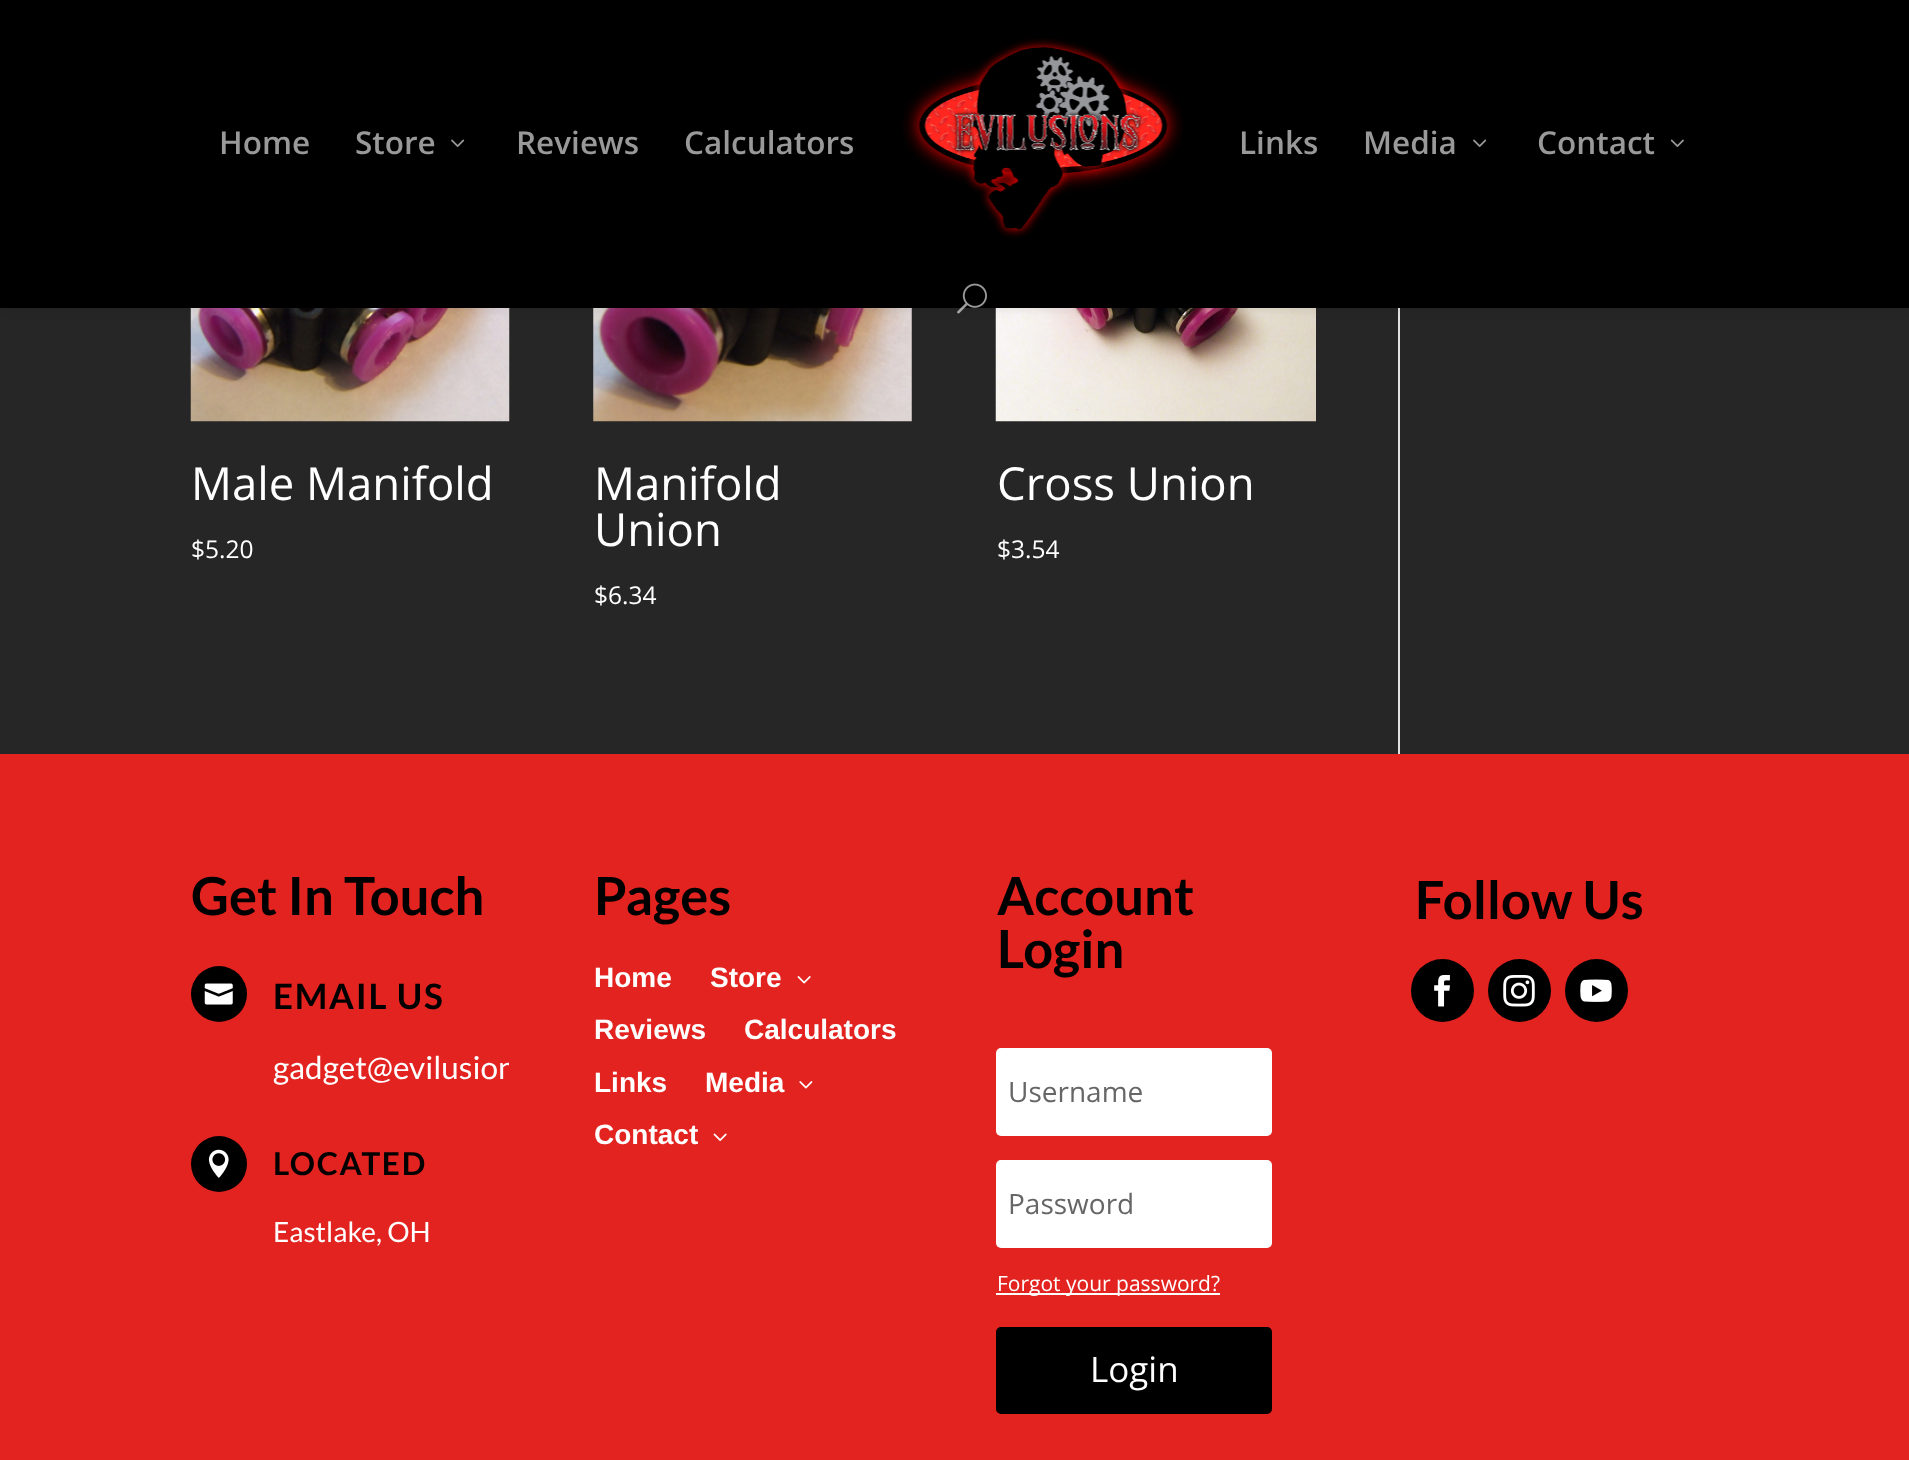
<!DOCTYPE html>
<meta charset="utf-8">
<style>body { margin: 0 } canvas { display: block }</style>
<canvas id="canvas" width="1909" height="1460"></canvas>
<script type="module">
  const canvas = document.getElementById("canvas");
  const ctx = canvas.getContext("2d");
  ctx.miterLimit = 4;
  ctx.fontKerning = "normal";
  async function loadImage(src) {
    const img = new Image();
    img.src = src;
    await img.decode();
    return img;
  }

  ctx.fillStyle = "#262626";
  ctx.fillRect(0, 0, 1909, 1460);
  ctx.drawImage(await loadImage("img5.png"), 190, 308, 320, 114);
  ctx.drawImage(await loadImage("img6.png"), 593, 308, 319, 114);
  ctx.drawImage(await loadImage("img7.png"), 995, 308, 321, 114);
  ctx.fillStyle = "#e2e2e2";
  ctx.fillRect(1398, 308, 2, 446);
  ctx.fillStyle = "rgba(0, 0, 0, 0.1)";
  ctx.filter = "blur(6px)";
  ctx.beginPath();
  ctx.rect(0, 0, 1909, 308);
  ctx.fill();
  ctx.filter = "none";
  ctx.fillStyle = "#000000";
  ctx.fillRect(0, 0, 1909, 308);
  ctx.font = "600 31.5px Open Sans";
  ctx.fillStyle = "#999999";
  ctx.fillText("Home", 219, 154);
  ctx.fillText("Store", 355, 154);
  ctx.drawImage(await loadImage("img1.png"), 451, 139, 14, 8);
  ctx.fillText("Reviews", 516, 154);
  ctx.fillText("Calculators", 684, 154);
  ctx.drawImage(await loadImage("img2.png"), 903, 38, 280, 200);
  ctx.fillText("Links", 1239, 154);
  ctx.fillText("Media", 1363, 154);
  ctx.drawImage(await loadImage("img1.png"), 1473, 139, 14, 8);
  ctx.fillText("Contact", 1537, 154);
  ctx.drawImage(await loadImage("img3.png"), 1670, 139, 14, 8);
  ctx.drawImage(await loadImage("img4.png"), 957, 283, 30, 31);
  ctx.font = "45.5px Open Sans";
  ctx.fillStyle = "#ffffff";
  ctx.fillText("Male Manifold", 191, 500);
  ctx.font = "24.5px Open Sans";
  ctx.fillText("$5.20", 191, 558);
  ctx.font = "45.5px Open Sans";
  ctx.fillText("Manifold", 594, 500);
  ctx.fillText("Union", 594, 546);
  ctx.font = "24.5px Open Sans";
  ctx.fillText("$6.34", 594, 604);
  ctx.font = "45.5px Open Sans";
  ctx.fillText("Cross Union", 997, 500);
  ctx.font = "24.5px Open Sans";
  ctx.fillText("$3.54", 997, 558);
  ctx.fillStyle = "#e2231f";
  ctx.fillRect(0, 754, 1909, 706);
  ctx.font = "bold 52.5px Lato";
  ctx.fillStyle = "#000000";
  ctx.fillText("Get In Touch", 191, 915);
  ctx.beginPath();
  ctx.arc(219, 994, 28, 0, Math.PI * 2);
  ctx.fill();
  ctx.drawImage(await loadImage("img8.png"), 204, 983, 29, 22);
  ctx.letterSpacing = "1.75px";
  ctx.font = "bold 35px Lato";
  ctx.fillText("EMAIL US", 273, 1009);
  ctx.save();
  ctx.beginPath();
  ctx.roundRect(191, 966, 318, 128, 18);
  ctx.clip();
  ctx.letterSpacing = "0px";
  ctx.font = "31.5px Lato";
  ctx.fillStyle = "#ffffff";
  ctx.fillText("gadget@evilusion", 273, 1079);
  ctx.restore();
  ctx.beginPath();
  ctx.arc(219, 1164, 28, 0, Math.PI * 2);
  ctx.fill();
  ctx.drawImage(await loadImage("img9.png"), 208, 1149, 21, 29);
  ctx.font = "bold 31.5px Lato";
  ctx.fillText("LOCATED", 273, 1175);
  ctx.letterSpacing = "0px";
  ctx.font = "28px Lato";
  ctx.fillStyle = "#ffffff";
  ctx.fillText("Eastlake, OH", 273, 1242);
  ctx.font = "bold 52.5px Lato";
  ctx.fillStyle = "#000000";
  ctx.fillText("Pages", 594, 915);
  ctx.font = "bold 28px Liberation Sans";
  ctx.fillStyle = "#ffffff";
  ctx.fillText("Home", 594, 987);
  ctx.fillText("Store", 710, 987);
  ctx.drawImage(await loadImage("img10.png"), 797, 976, 14, 8);
  ctx.fillText("Reviews", 594, 1039);
  ctx.fillText("Calculators", 744, 1039);
  ctx.fillText("Links", 594, 1092);
  ctx.fillText("Media", 705, 1092);
  ctx.drawImage(await loadImage("img11.png"), 799, 1081, 14, 8);
  ctx.fillText("Contact", 594, 1144);
  ctx.drawImage(await loadImage("img12.png"), 713, 1133, 14, 8);
  ctx.font = "bold 52.5px Lato";
  ctx.fillStyle = "#000000";
  ctx.fillText("Account", 997, 915);
  ctx.fillText("Login", 997, 968);
  ctx.fillStyle = "#ffffff";
  ctx.beginPath();
  ctx.roundRect(996, 1048, 276, 88, 5);
  ctx.fill();
  ctx.font = "28px Open Sans";
  ctx.fillStyle = "#666666";
  ctx.fillText("Username", 1008, 1102);
  ctx.fillStyle = "#ffffff";
  ctx.beginPath();
  ctx.roundRect(996, 1160, 276, 88, 5);
  ctx.fill();
  ctx.fillStyle = "#666666";
  ctx.fillText("Password", 1008, 1214);
  ctx.fillStyle = "#ffffff";
  ctx.fillRect(996, 1293, 224, 2);
  ctx.font = "21px Open Sans";
  ctx.fillText("Forgot your password?", 997, 1291);
  ctx.fillStyle = "#000000";
  ctx.beginPath();
  ctx.roundRect(998, 1329, 272, 83, 3);
  ctx.fill();
  ctx.strokeStyle = "#000000";
  ctx.lineWidth = 4;
  ctx.stroke();
  ctx.font = "35px Open Sans";
  ctx.fillStyle = "#ffffff";
  ctx.fillText("Login", 1090, 1382);
  ctx.font = "bold 52.5px Lato";
  ctx.fillStyle = "#000000";
  ctx.fillText("Follow Us", 1415, 919);
  ctx.beginPath();
  ctx.arc(1442.5, 990.5, 31.5, 0, Math.PI * 2);
  ctx.fill();
  ctx.drawImage(await loadImage("img13.png"), 1434, 975, 16, 32);
  ctx.beginPath();
  ctx.arc(1519.5, 990.5, 31.5, 0, Math.PI * 2);
  ctx.fill();
  ctx.drawImage(await loadImage("img14.png"), 1503, 975, 32, 32);
  ctx.beginPath();
  ctx.arc(1596.5, 990.5, 31.5, 0, Math.PI * 2);
  ctx.fill();
  ctx.drawImage(await loadImage("img15.png"), 1580, 979, 32, 23);
</script>
